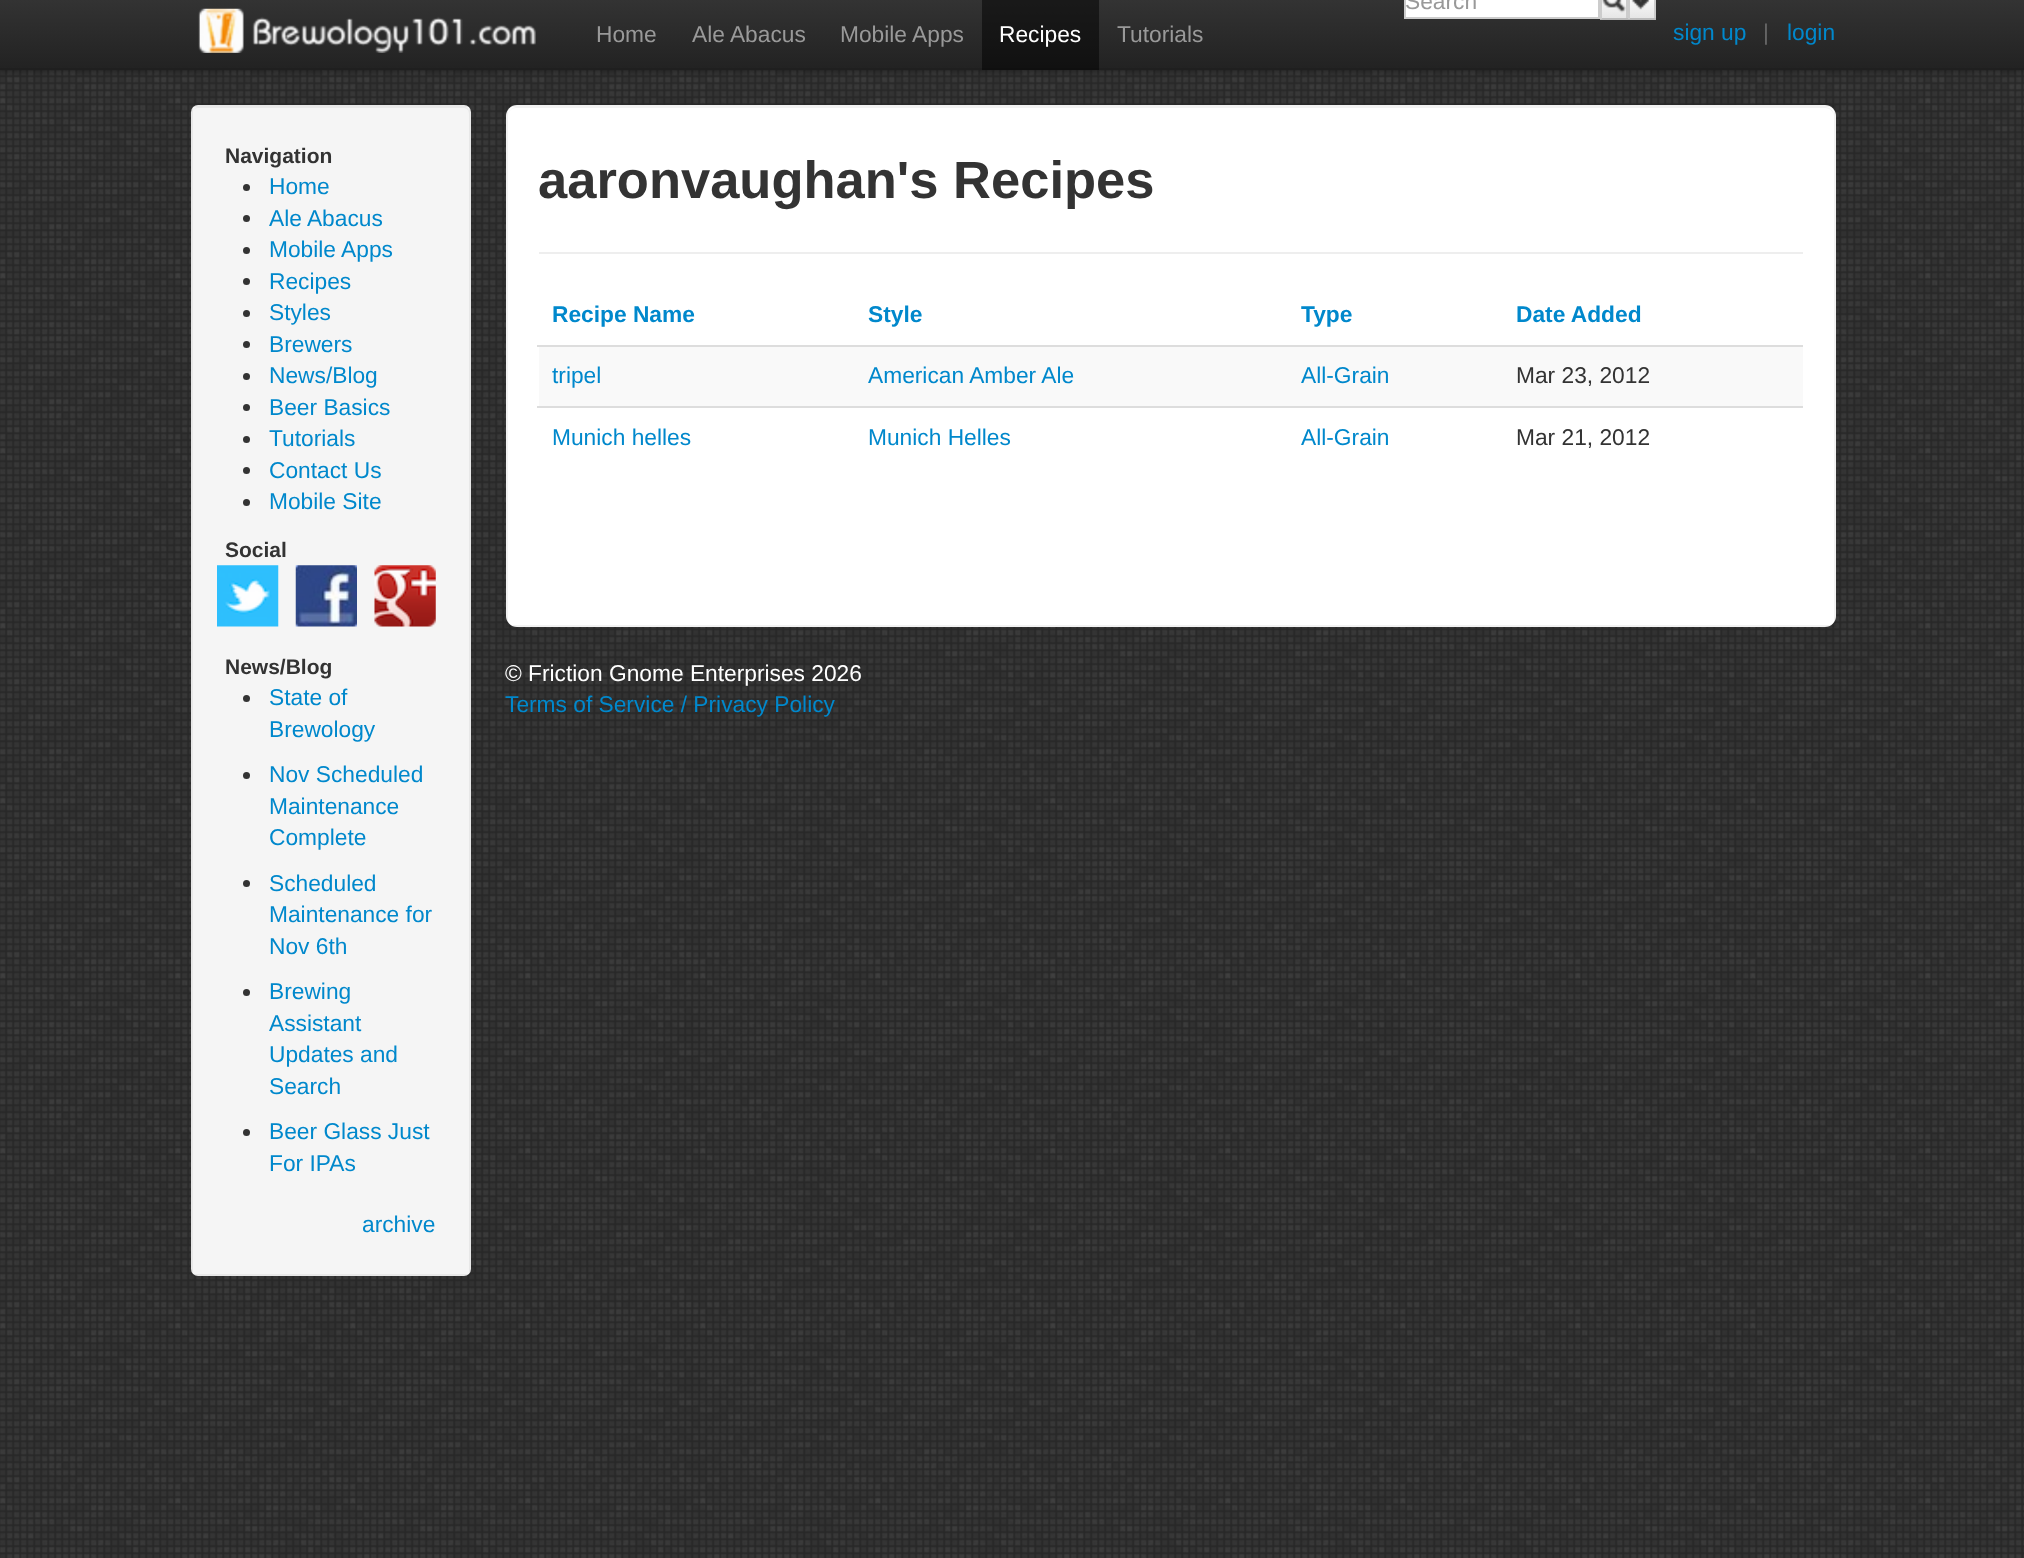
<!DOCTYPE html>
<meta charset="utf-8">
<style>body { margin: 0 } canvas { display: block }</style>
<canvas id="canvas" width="2024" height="1558"></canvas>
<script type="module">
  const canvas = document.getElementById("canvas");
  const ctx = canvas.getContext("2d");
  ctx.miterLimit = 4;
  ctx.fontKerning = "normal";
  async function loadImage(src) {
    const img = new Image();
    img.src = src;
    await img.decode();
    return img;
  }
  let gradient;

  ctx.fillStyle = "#ffffff";
  ctx.fillRect(0, 0, 2024, 1558);
  ctx.drawImage(await loadImage("img1.png"), 0, 70, 2024, 1488);
  ctx.fillStyle = "rgba(0, 0, 0, 0.25)";
  ctx.filter = "blur(2.5px)";
  ctx.beginPath();
  ctx.rect(0, 2, 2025, 70);
  ctx.fill();
  ctx.filter = "none";
  gradient = ctx.createLinearGradient(1012, 0, 1012, 70);
  gradient.addColorStop(0, "#333333");
  gradient.addColorStop(1, "#222222");
  ctx.fillStyle = gradient;
  ctx.fillRect(0, 0, 2024, 68);
  ctx.fillStyle = "#1f1f1f";
  ctx.fillRect(0, 68, 2024, 2);
  ctx.fillStyle = "#ffffff";
  ctx.beginPath();
  ctx.rect(1405, -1, 194, 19);
  ctx.fill();
  ctx.strokeStyle = "#cccccc";
  ctx.lineWidth = 2;
  ctx.stroke();
  ctx.font = "22.75px Liberation Sans";
  ctx.fillStyle = "#999999";
  ctx.fillText("Search", 1405, 9);
  gradient = ctx.createLinearGradient(1614, -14, 1614, 18);
  gradient.addColorStop(0, "#ffffff");
  gradient.addColorStop(0.25, "#ffffff");
  gradient.addColorStop(1, "#e6e6e6");
  ctx.fillStyle = gradient;
  ctx.fillRect(1602, 0, 24, 18);
  ctx.fillStyle = "#cccccc";
  ctx.fillRect(1626, 0, 2, 19);
  ctx.fillStyle = "#bbbbbb";
  ctx.fillRect(1600, 18, 28, 2);
  ctx.fillStyle = "#cccccc";
  ctx.fillRect(1600, 0, 2, 19);
  ctx.drawImage(await loadImage("img2.png"), 1602, 0, 24, 13);
  gradient = ctx.createLinearGradient(1642, -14, 1642, 18);
  gradient.addColorStop(0, "#ffffff");
  gradient.addColorStop(0.25, "#ffffff");
  gradient.addColorStop(1, "#e6e6e6");
  ctx.fillStyle = gradient;
  ctx.fillRect(1630, 0, 24, 18);
  ctx.fillStyle = "#cccccc";
  ctx.fillRect(1654, 0, 2, 19);
  ctx.fillStyle = "#bbbbbb";
  ctx.fillRect(1628, 18, 28, 2);
  ctx.fillStyle = "#cccccc";
  ctx.fillRect(1628, 0, 2, 19);
  ctx.drawImage(await loadImage("img3.png"), 1631, 0, 19, 10);
  ctx.drawImage(await loadImage("img4.png"), 198, 8, 338, 45);
  ctx.fillStyle = "#999999";
  ctx.fillText("Home", 596, 42);
  ctx.fillText("Ale Abacus", 692, 42);
  ctx.fillText("Mobile Apps", 840, 42);
  ctx.fillStyle = "rgba(0, 0, 0, 0.5)";
  ctx.fillRect(982, 0, 117, 70);
  ctx.fillStyle = "#ffffff";
  ctx.fillText("Recipes", 999, 42);
  ctx.fillStyle = "#999999";
  ctx.fillText("Tutorials", 1117, 42);
  ctx.fillStyle = "#0088cc";
  ctx.fillText("sign up", 1673, 40);
  ctx.fillStyle = "#666666";
  ctx.fillText("|", 1763, 40);
  ctx.fillStyle = "#0088cc";
  ctx.fillText("login", 1787, 40);
  ctx.fillStyle = "#f5f5f5";
  ctx.beginPath();
  ctx.roundRect(191, 105, 280, 1171, 7);
  ctx.fill();
  ctx.fillStyle = "#e9e9e9";
  ctx.beginPath();
  ctx.moveTo(198, 108);
  ctx.lineTo(464, 108);
  ctx.bezierCurveTo(467, 108, 469, 111, 469, 114);
  ctx.lineTo(469, 112);
  ctx.bezierCurveTo(469, 109, 467, 107, 464, 107);
  ctx.lineTo(198, 107);
  ctx.bezierCurveTo(196, 107, 194, 109, 193, 111);
  ctx.bezierCurveTo(194, 109, 196, 108, 198, 108);
  ctx.closePath();
  ctx.fill();
  ctx.strokeStyle = "rgba(0, 0, 0, 0.05)";
  ctx.strokeRect(192, 106, 278, 1169);
  ctx.font = "bold 21px Liberation Sans";
  ctx.fillStyle = "#333333";
  ctx.fillText("Navigation", 225, 163);
  ctx.beginPath();
  ctx.arc(246.5, 187.5, 3.5, 0, Math.PI * 2);
  ctx.fill();
  ctx.font = "22.75px Liberation Sans";
  ctx.fillStyle = "#0088cc";
  ctx.fillText("Home", 269, 194);
  ctx.fillStyle = "#333333";
  ctx.beginPath();
  ctx.arc(246.5, 218.5, 3.5, 0, Math.PI * 2);
  ctx.fill();
  ctx.fillStyle = "#0088cc";
  ctx.fillText("Ale Abacus", 269, 226);
  ctx.fillStyle = "#333333";
  ctx.beginPath();
  ctx.arc(246.5, 250.5, 3.5, 0, Math.PI * 2);
  ctx.fill();
  ctx.fillStyle = "#0088cc";
  ctx.fillText("Mobile Apps", 269, 257);
  ctx.fillStyle = "#333333";
  ctx.beginPath();
  ctx.arc(246.5, 281.5, 3.5, 0, Math.PI * 2);
  ctx.fill();
  ctx.fillStyle = "#0088cc";
  ctx.fillText("Recipes", 269, 289);
  ctx.fillStyle = "#333333";
  ctx.beginPath();
  ctx.arc(246.5, 313.5, 3.5, 0, Math.PI * 2);
  ctx.fill();
  ctx.fillStyle = "#0088cc";
  ctx.fillText("Styles", 269, 320);
  ctx.fillStyle = "#333333";
  ctx.beginPath();
  ctx.arc(246.5, 344.5, 3.5, 0, Math.PI * 2);
  ctx.fill();
  ctx.fillStyle = "#0088cc";
  ctx.fillText("Brewers", 269, 352);
  ctx.fillStyle = "#333333";
  ctx.beginPath();
  ctx.arc(246.5, 376.5, 3.5, 0, Math.PI * 2);
  ctx.fill();
  ctx.fillStyle = "#0088cc";
  ctx.fillText("News/Blog", 269, 383);
  ctx.fillStyle = "#333333";
  ctx.beginPath();
  ctx.arc(246.5, 407.5, 3.5, 0, Math.PI * 2);
  ctx.fill();
  ctx.fillStyle = "#0088cc";
  ctx.fillText("Beer Basics", 269, 415);
  ctx.fillStyle = "#333333";
  ctx.beginPath();
  ctx.arc(246.5, 439.5, 3.5, 0, Math.PI * 2);
  ctx.fill();
  ctx.fillStyle = "#0088cc";
  ctx.fillText("Tutorials", 269, 446);
  ctx.fillStyle = "#333333";
  ctx.beginPath();
  ctx.arc(246.5, 470.5, 3.5, 0, Math.PI * 2);
  ctx.fill();
  ctx.fillStyle = "#0088cc";
  ctx.fillText("Contact Us", 269, 478);
  ctx.fillStyle = "#333333";
  ctx.beginPath();
  ctx.arc(246.5, 502.5, 3.5, 0, Math.PI * 2);
  ctx.fill();
  ctx.fillStyle = "#0088cc";
  ctx.fillText("Mobile Site", 269, 509);
  ctx.font = "bold 21px Liberation Sans";
  ctx.fillStyle = "#333333";
  ctx.fillText("Social", 225, 557);
  ctx.drawImage(await loadImage("img5.png"), 217, 565, 62, 62);
  ctx.drawImage(await loadImage("img6.png"), 295, 565, 62, 62);
  ctx.drawImage(await loadImage("img7.png"), 374, 565, 62, 62);
  ctx.fillText("News/Blog", 225, 674);
  ctx.beginPath();
  ctx.arc(246.5, 698.5, 3.5, 0, Math.PI * 2);
  ctx.fill();
  ctx.font = "22.75px Liberation Sans";
  ctx.fillStyle = "#0088cc";
  ctx.fillText("State of", 269, 705);
  ctx.fillText("Brewology", 269, 737);
  ctx.fillStyle = "#333333";
  ctx.beginPath();
  ctx.arc(246.5, 775.5, 3.5, 0, Math.PI * 2);
  ctx.fill();
  ctx.fillStyle = "#0088cc";
  ctx.fillText("Nov Scheduled", 269, 782);
  ctx.fillText("Maintenance", 269, 814);
  ctx.fillText("Complete", 269, 845);
  ctx.fillStyle = "#333333";
  ctx.beginPath();
  ctx.arc(246.5, 883.5, 3.5, 0, Math.PI * 2);
  ctx.fill();
  ctx.fillStyle = "#0088cc";
  ctx.fillText("Scheduled", 269, 891);
  ctx.fillText("Maintenance for", 269, 922);
  ctx.fillText("Nov 6th", 269, 954);
  ctx.fillStyle = "#333333";
  ctx.beginPath();
  ctx.arc(246.5, 992.5, 3.5, 0, Math.PI * 2);
  ctx.fill();
  ctx.fillStyle = "#0088cc";
  ctx.fillText("Brewing", 269, 999);
  ctx.fillText("Assistant", 269, 1031);
  ctx.fillText("Updates and", 269, 1062);
  ctx.fillText("Search", 269, 1094);
  ctx.fillStyle = "#333333";
  ctx.beginPath();
  ctx.arc(246.5, 1132.5, 3.5, 0, Math.PI * 2);
  ctx.fill();
  ctx.fillStyle = "#0088cc";
  ctx.fillText("Beer Glass Just", 269, 1139);
  ctx.fillText("For IPAs", 269, 1171);
  ctx.fillText("archive", 362, 1232);
  ctx.fillStyle = "#ffffff";
  ctx.beginPath();
  ctx.roundRect(506, 105, 1330, 522, 11);
  ctx.fill();
  ctx.fillStyle = "#f2f2f2";
  ctx.beginPath();
  ctx.moveTo(516, 108);
  ctx.lineTo(1825, 108);
  ctx.bezierCurveTo(1830, 108, 1834, 112, 1834, 117);
  ctx.lineTo(1834, 116);
  ctx.bezierCurveTo(1834, 111, 1830, 107, 1825, 107);
  ctx.lineTo(517, 107);
  ctx.bezierCurveTo(512, 107, 508, 111, 508, 116);
  ctx.lineTo(508, 117);
  ctx.bezierCurveTo(508, 112, 511, 108, 516, 108);
  ctx.closePath();
  ctx.fill();
  ctx.strokeRect(507, 106, 1328, 520);
  ctx.fillStyle = "#eeeeee";
  ctx.fillRect(539, 252, 1264, 2);
  ctx.font = "bold 52.5px Liberation Sans";
  ctx.fillStyle = "#333333";
  ctx.fillText("aaronvaughan's Recipes", 538, 198);
  ctx.font = "bold 22.75px Liberation Sans";
  ctx.fillStyle = "#0088cc";
  ctx.fillText("Recipe Name", 552, 322);
  ctx.fillText("Style", 868, 322);
  ctx.fillText("Type", 1301, 322);
  ctx.fillText("Date Added", 1516, 322);
  ctx.fillStyle = "#f9f9f9";
  ctx.fillRect(539, 347, 1264, 59);
  ctx.font = "22.75px Liberation Sans";
  ctx.fillStyle = "#0088cc";
  ctx.fillText("tripel", 552, 383);
  ctx.fillText("American Amber Ale", 868, 383);
  ctx.fillText("All-Grain", 1301, 383);
  ctx.fillStyle = "#dddddd";
  ctx.fillRect(537, 345, 1266, 2);
  ctx.fillStyle = "#333333";
  ctx.fillText("Mar 23, 2012", 1516, 383);
  ctx.fillStyle = "#0088cc";
  ctx.fillText("Munich helles", 552, 445);
  ctx.fillText("Munich Helles", 868, 445);
  ctx.fillText("All-Grain", 1301, 445);
  ctx.fillStyle = "#dddddd";
  ctx.fillRect(537, 406, 1266, 2);
  ctx.fillStyle = "#333333";
  ctx.fillText("Mar 21, 2012", 1516, 445);
  ctx.fillStyle = "#ffffff";
  ctx.fillText("© Friction Gnome Enterprises 2026", 505, 681);
  ctx.fillStyle = "#0088cc";
  ctx.fillText("Terms of Service / Privacy Policy", 505, 712);
</script>
